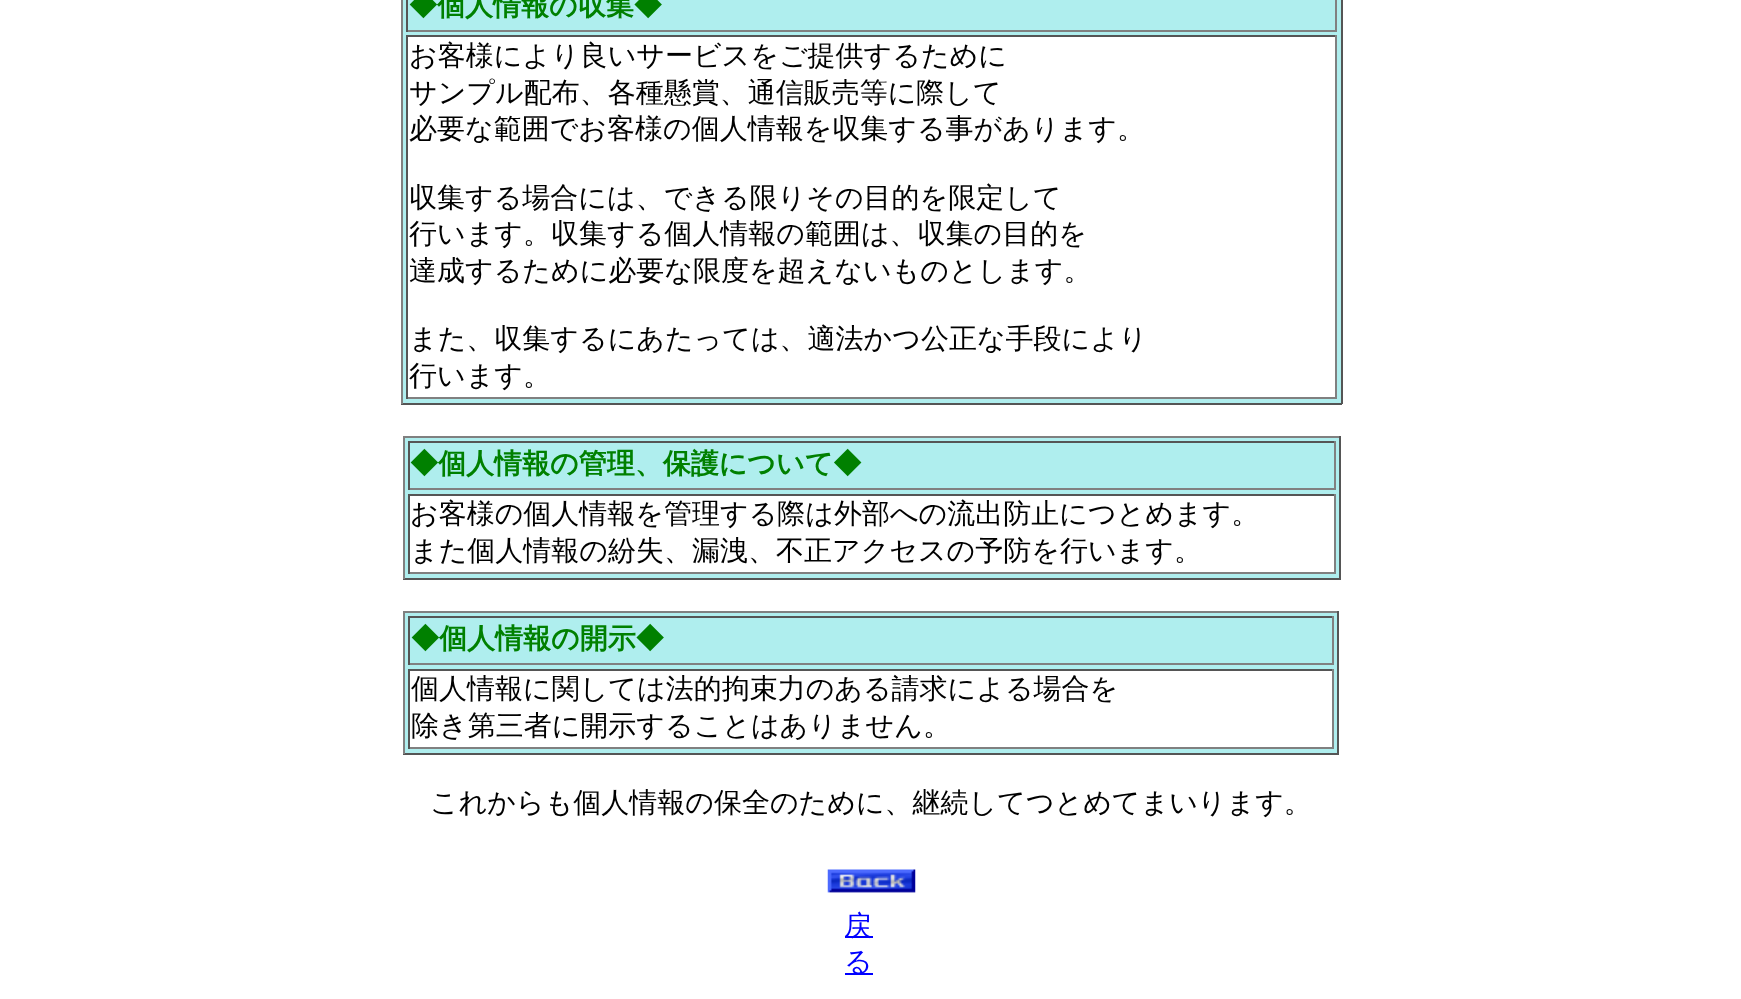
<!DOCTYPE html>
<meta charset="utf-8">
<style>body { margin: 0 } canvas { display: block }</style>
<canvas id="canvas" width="1741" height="999"></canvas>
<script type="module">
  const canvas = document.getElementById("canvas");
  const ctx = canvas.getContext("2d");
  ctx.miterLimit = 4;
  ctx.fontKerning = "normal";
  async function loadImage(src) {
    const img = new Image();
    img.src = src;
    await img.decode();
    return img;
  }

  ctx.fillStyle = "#ffffff";
  ctx.fillRect(0, 0, 1741, 999);
  ctx.fillStyle = "#afeeee";
  ctx.fillRect(403, 0, 938, 403);
  ctx.fillStyle = "#555555";
  ctx.fillRect(1341, 0, 2, 404);
  ctx.fillRect(401, 403, 941, 2);
  ctx.fillStyle = "#808080";
  ctx.fillRect(401, 0, 2, 404);
  ctx.fillRect(1335, 0, 2, 32);
  ctx.fillRect(406, 30, 931, 2);
  ctx.fillStyle = "#555555";
  ctx.fillRect(406, 0, 2, 32);
  ctx.font = "bold 28px WenQuanYi Zen Hei";
  ctx.fillStyle = "#008000";
  ctx.fillText("◆個人情報の収集◆", 409, 15);
  ctx.fillStyle = "#ffffff";
  ctx.fillRect(408, 37, 927, 360);
  ctx.fillStyle = "#555555";
  ctx.fillRect(406, 35, 931, 2);
  ctx.fillStyle = "#808080";
  ctx.fillRect(1335, 35, 2, 364);
  ctx.fillRect(406, 397, 931, 2);
  ctx.fillStyle = "#555555";
  ctx.fillRect(406, 35, 2, 364);
  ctx.font = "500 28px WenQuanYi Zen Hei";
  ctx.fillStyle = "#000000";
  ctx.fillText("お客様により良いサービスをご提供するために", 409, 65);
  ctx.fillText("サンプル配布、各種懸賞、通信販売等に際して", 409, 102);
  ctx.fillText("必要な範囲でお客様の個人情報を収集する事があります。", 409, 138);
  ctx.fillText("収集する場合には、できる限りその目的を限定して", 409, 207);
  ctx.fillText("行います。収集する個人情報の範囲は、収集の目的を", 409, 243);
  ctx.fillText("達成するために必要な限度を超えないものとします。", 409, 280);
  ctx.fillText("また、収集するにあたっては、適法かつ公正な手段により", 409, 348);
  ctx.fillText("行います。", 409, 385);
  ctx.fillStyle = "#afeeee";
  ctx.fillRect(405, 438, 934, 140);
  ctx.fillStyle = "#808080";
  ctx.fillRect(403, 436, 938, 2);
  ctx.fillStyle = "#555555";
  ctx.fillRect(1339, 436, 2, 143);
  ctx.fillRect(403, 578, 938, 2);
  ctx.fillStyle = "#808080";
  ctx.fillRect(403, 436, 2, 143);
  ctx.fillStyle = "#555555";
  ctx.fillRect(408, 441, 927, 2);
  ctx.fillStyle = "#808080";
  ctx.fillRect(1334, 441, 2, 49);
  ctx.fillRect(408, 488, 927, 2);
  ctx.fillStyle = "#555555";
  ctx.fillRect(408, 441, 2, 49);
  ctx.font = "bold 28px WenQuanYi Zen Hei";
  ctx.fillStyle = "#008000";
  ctx.fillText("◆個人情報の管理、保護について◆", 410, 473);
  ctx.fillStyle = "#ffffff";
  ctx.fillRect(410, 496, 924, 76);
  ctx.fillStyle = "#555555";
  ctx.fillRect(408, 494, 927, 2);
  ctx.fillStyle = "#808080";
  ctx.fillRect(1334, 494, 2, 80);
  ctx.fillRect(408, 572, 927, 2);
  ctx.fillStyle = "#555555";
  ctx.fillRect(408, 494, 2, 80);
  ctx.font = "500 28px WenQuanYi Zen Hei";
  ctx.fillStyle = "#000000";
  ctx.fillText("お客様の個人情報を管理する際は外部への流出防止につとめます。", 410, 523);
  ctx.fillText("また個人情報の紛失、漏洩、不正アクセスの予防を行います。", 410, 560);
  ctx.fillStyle = "#afeeee";
  ctx.fillRect(405, 613, 932, 140);
  ctx.fillStyle = "#808080";
  ctx.fillRect(403, 611, 936, 2);
  ctx.fillStyle = "#555555";
  ctx.fillRect(1337, 611, 2, 143);
  ctx.fillRect(403, 753, 936, 2);
  ctx.fillStyle = "#808080";
  ctx.fillRect(403, 611, 2, 143);
  ctx.fillStyle = "#555555";
  ctx.fillRect(408, 616, 926, 2);
  ctx.fillStyle = "#808080";
  ctx.fillRect(1332, 616, 2, 49);
  ctx.fillRect(408, 663, 926, 2);
  ctx.fillStyle = "#555555";
  ctx.fillRect(408, 616, 2, 49);
  ctx.font = "bold 28px WenQuanYi Zen Hei";
  ctx.fillStyle = "#008000";
  ctx.fillText("◆個人情報の開示◆", 411, 648);
  ctx.fillStyle = "#ffffff";
  ctx.fillRect(410, 671, 922, 76);
  ctx.fillStyle = "#555555";
  ctx.fillRect(408, 669, 926, 2);
  ctx.fillStyle = "#808080";
  ctx.fillRect(1332, 669, 2, 80);
  ctx.fillRect(408, 747, 926, 2);
  ctx.fillStyle = "#555555";
  ctx.fillRect(408, 669, 2, 80);
  ctx.font = "500 28px WenQuanYi Zen Hei";
  ctx.fillStyle = "#000000";
  ctx.fillText("個人情報に関しては法的拘束力のある請求による場合を", 411, 698);
  ctx.fillText("除き第三者に開示することはありません。", 411, 735);
  ctx.fillText("これからも個人情報の保全のために、継続してつとめてまいります。", 430, 812);
  ctx.drawImage(await loadImage("img1.png"), 827, 869, 89, 24);
  ctx.fillStyle = "#0000ff";
  ctx.fillRect(845, 936, 28, 2);
  ctx.fillText("戻", 844, 935);
  ctx.fillRect(845, 973, 28, 2);
  ctx.fillText("る", 844, 971);
</script>
